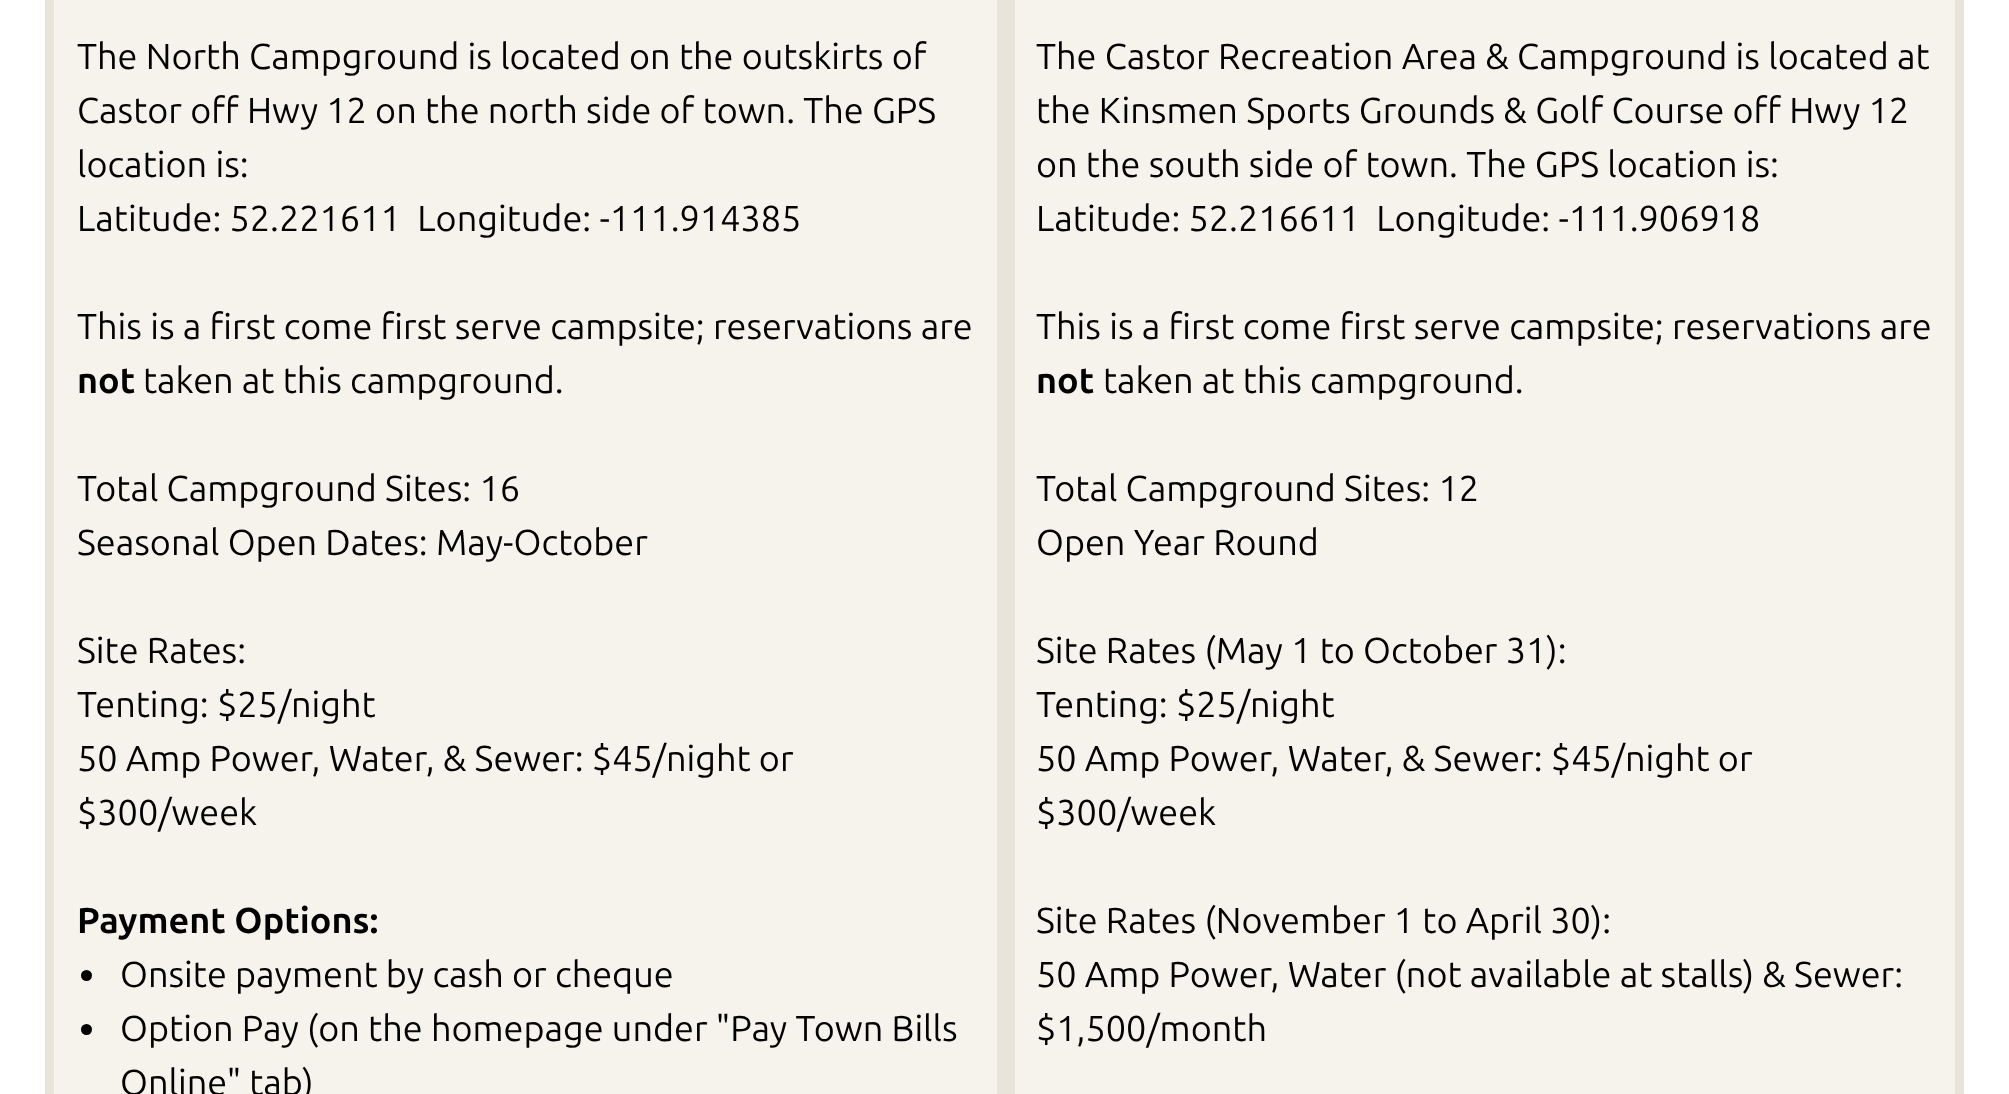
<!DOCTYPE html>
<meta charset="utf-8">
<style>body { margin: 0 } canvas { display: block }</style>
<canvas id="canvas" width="2009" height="1094"></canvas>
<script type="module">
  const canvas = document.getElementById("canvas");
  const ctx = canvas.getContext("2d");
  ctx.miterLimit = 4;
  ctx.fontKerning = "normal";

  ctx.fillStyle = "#ffffff";
  ctx.fillRect(0, 0, 2009, 1094);
  ctx.fillStyle = "#f6f3ec";
  ctx.beginPath();
  ctx.rect(49.5, -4.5, 952, 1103);
  ctx.fill();
  ctx.strokeStyle = "#e9e4d9";
  ctx.lineWidth = 9;
  ctx.stroke();
  ctx.font = "36px Ubuntu";
  ctx.fillStyle = "#000000";
  ctx.fillText("The North Campground is located on the outskirts of", 77, 69);
  ctx.fillText("Castor off Hwy 12 on the north side of town. The GPS", 77, 123);
  ctx.fillText("location is:", 77, 177);
  ctx.fillText("Latitude: 52.221611  Longitude: -111.914385", 77, 231);
  ctx.fillText("This is a first come first serve campsite; reservations are", 77, 339);
  ctx.font = "bold 36px Ubuntu";
  ctx.fillText("not", 77, 393);
  ctx.font = "36px Ubuntu";
  ctx.fillText("taken at this campground.", 143, 393);
  ctx.fillText("Total Campground Sites: 16", 77, 501);
  ctx.fillText("Seasonal Open Dates: May-October", 77, 555);
  ctx.fillText("Site Rates:", 77, 663);
  ctx.fillText("Tenting: $25/night", 77, 717);
  ctx.fillText("50 Amp Power, Water, & Sewer: $45/night or", 77, 771);
  ctx.fillText("$300/week", 77, 825);
  ctx.font = "bold 36px Ubuntu";
  ctx.fillText("Payment Options:", 77, 933);
  ctx.beginPath();
  ctx.arc(86.5, 975.5, 5.5, 0, Math.PI * 2);
  ctx.fill();
  ctx.font = "36px Ubuntu";
  ctx.fillText("Onsite payment by cash or cheque", 120, 987);
  ctx.beginPath();
  ctx.arc(86.5, 1029.5, 5.5, 0, Math.PI * 2);
  ctx.fill();
  ctx.fillText("Option Pay (on the homepage under \"Pay Town Bills", 120, 1041);
  ctx.fillText("Online\" tab)", 120, 1095);
  ctx.fillStyle = "#f6f3ec";
  ctx.beginPath();
  ctx.rect(1010.5, -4.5, 949, 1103);
  ctx.fill();
  ctx.stroke();
  ctx.fillStyle = "#000000";
  ctx.fillText("The Castor Recreation Area & Campground is located at", 1036, 69);
  ctx.fillText("the Kinsmen Sports Grounds & Golf Course off Hwy 12", 1036, 123);
  ctx.fillText("on the south side of town. The GPS location is:", 1036, 177);
  ctx.fillText("Latitude: 52.216611  Longitude: -111.906918", 1036, 231);
  ctx.fillText("This is a first come first serve campsite; reservations are", 1036, 339);
  ctx.font = "bold 36px Ubuntu";
  ctx.fillText("not", 1036, 393);
  ctx.font = "36px Ubuntu";
  ctx.fillText("taken at this campground.", 1103, 393);
  ctx.fillText("Total Campground Sites: 12", 1036, 501);
  ctx.fillText("Open Year Round", 1036, 555);
  ctx.fillText("Site Rates (May 1 to October 31):", 1036, 663);
  ctx.fillText("Tenting: $25/night", 1036, 717);
  ctx.fillText("50 Amp Power, Water, & Sewer: $45/night or", 1036, 771);
  ctx.fillText("$300/week", 1036, 825);
  ctx.fillText("Site Rates (November 1 to April 30):", 1036, 933);
  ctx.fillText("50 Amp Power, Water (not available at stalls) & Sewer:", 1036, 987);
  ctx.fillText("$1,500/month", 1036, 1041);
</script>
